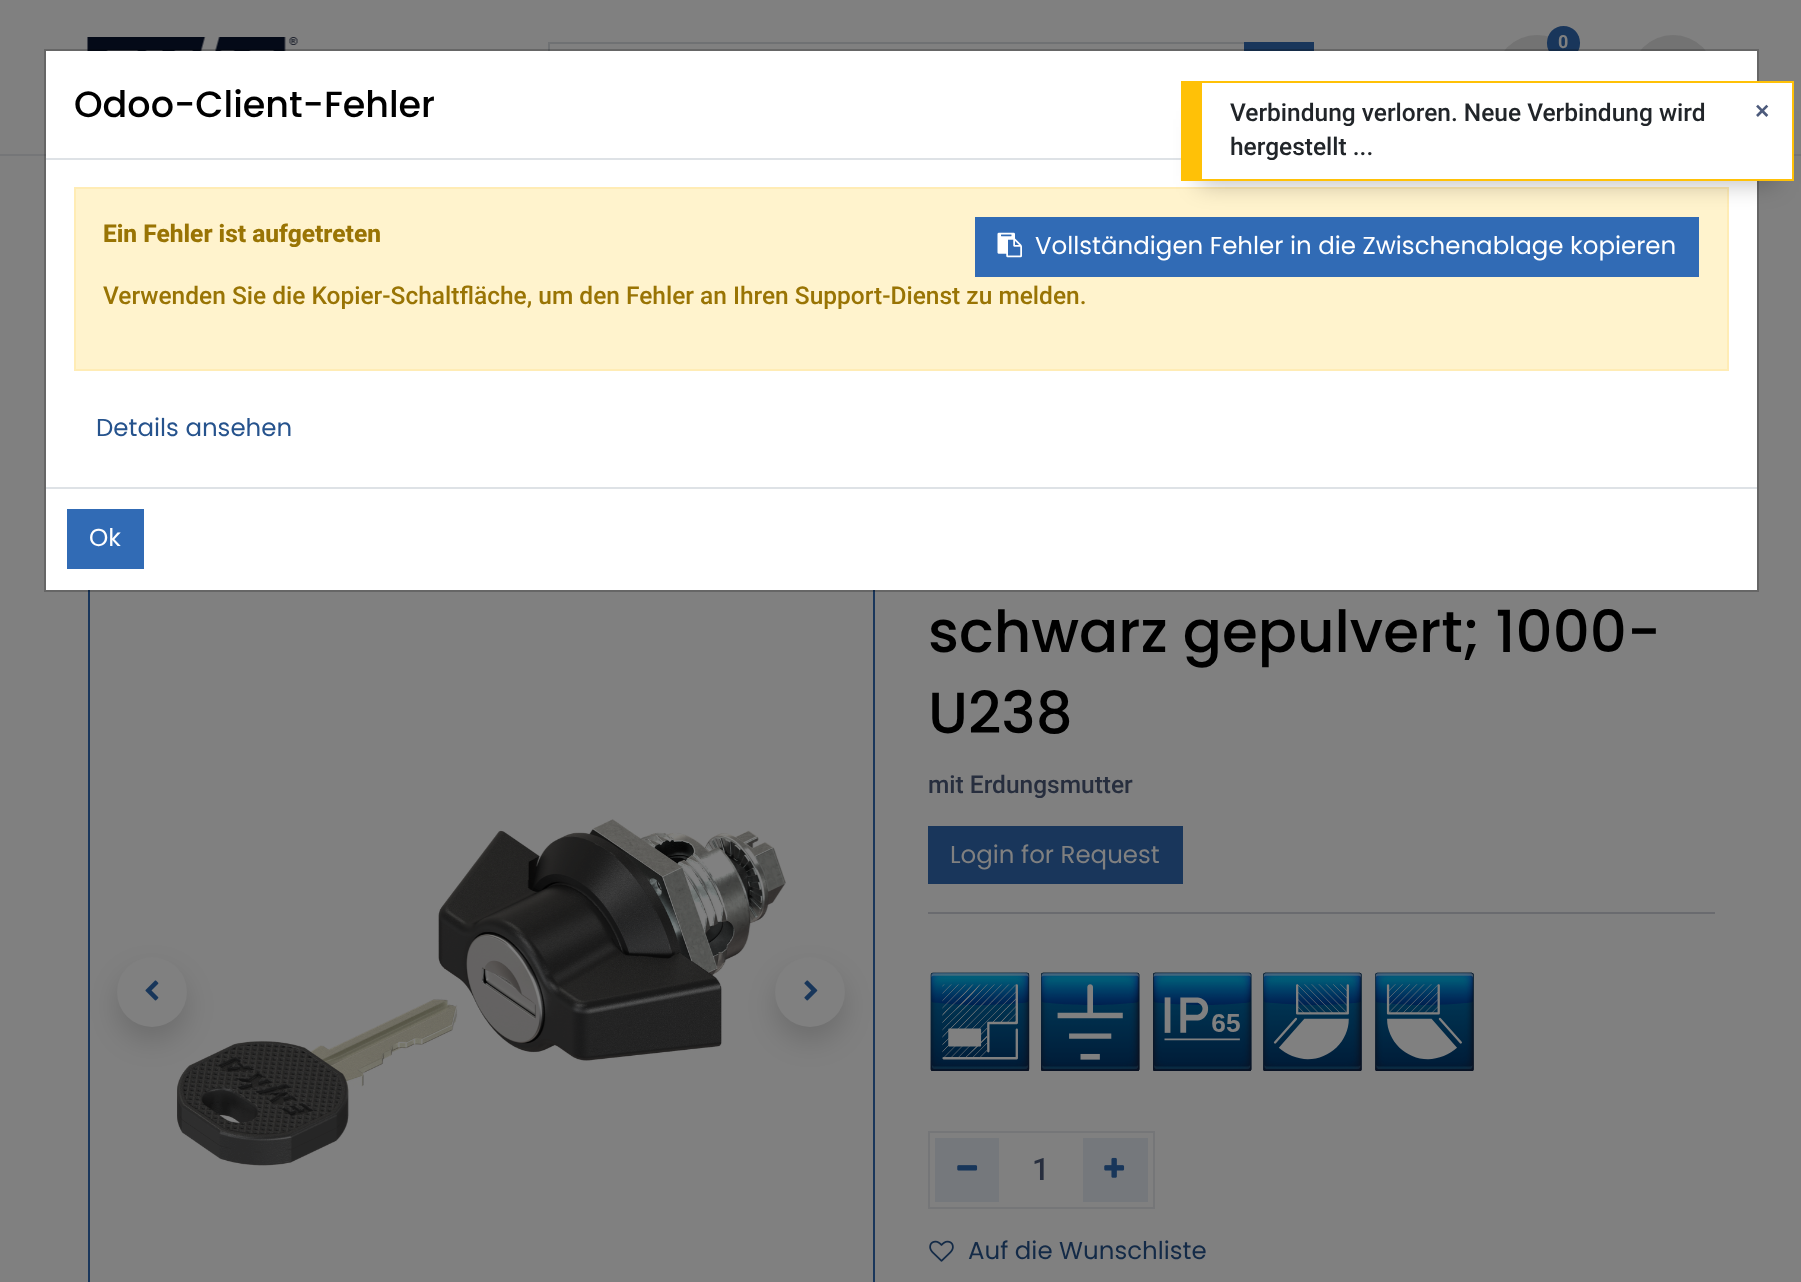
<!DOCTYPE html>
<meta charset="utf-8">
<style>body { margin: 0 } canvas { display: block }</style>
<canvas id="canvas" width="1801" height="1282"></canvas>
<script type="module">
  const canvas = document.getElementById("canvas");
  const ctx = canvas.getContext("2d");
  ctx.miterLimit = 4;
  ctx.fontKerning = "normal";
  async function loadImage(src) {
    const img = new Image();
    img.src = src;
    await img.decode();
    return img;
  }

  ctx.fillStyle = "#808080";
  ctx.fillRect(0, 0, 1801, 1282);
  ctx.fillStyle = "#757678";
  ctx.fillRect(0, 154, 1801, 2);
  ctx.drawImage(await loadImage("img1.png"), 87, 37, 211, 14);
  ctx.strokeStyle = "#6f7173";
  ctx.lineWidth = 2;
  ctx.strokeRect(549, 43, 696, 68);
  ctx.fillStyle = "#19365b";
  ctx.fillRect(1244, 42, 70, 9);
  ctx.fillStyle = "#737373";
  ctx.beginPath();
  ctx.arc(1537, 77, 42, 0, Math.PI * 2);
  ctx.fill();
  ctx.fillStyle = "#19365b";
  ctx.beginPath();
  ctx.roundRect(1547, 26, 33, 34, 16.5);
  ctx.fill();
  ctx.font = "bold 18px Roboto";
  ctx.fillStyle = "#808080";
  ctx.fillText("0", 1558, 48);
  ctx.fillStyle = "#737373";
  ctx.beginPath();
  ctx.arc(1673, 77, 42, 0, Math.PI * 2);
  ctx.fill();
  ctx.strokeStyle = "#19365b";
  ctx.strokeRect(89, 432, 785, 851);
  ctx.drawImage(await loadImage("img3.png"), 177, 819, 609, 347);
  ctx.fillStyle = "rgba(0, 0, 0, 0.15)";
  ctx.filter = "blur(14px)";
  ctx.beginPath();
  ctx.roundRect(117, 971, 70, 70, 35);
  ctx.fill();
  ctx.filter = "none";
  ctx.fillStyle = "#808080";
  ctx.beginPath();
  ctx.arc(152, 992, 35, 0, Math.PI * 2);
  ctx.fill();
  ctx.drawImage(await loadImage("img2.png"), 145, 980, 14, 21);
  ctx.fillStyle = "rgba(0, 0, 0, 0.15)";
  ctx.filter = "blur(14px)";
  ctx.beginPath();
  ctx.roundRect(775, 971, 70, 70, 35);
  ctx.fill();
  ctx.filter = "none";
  ctx.fillStyle = "#808080";
  ctx.beginPath();
  ctx.arc(810, 992, 35, 0, Math.PI * 2);
  ctx.fill();
  ctx.drawImage(await loadImage("img4.png"), 804, 980, 14, 21);
  ctx.font = "500 57.9px Poppins";
  ctx.fillStyle = "#000000";
  ctx.fillText("schwarz gepulvert; 1000-", 928, 652);
  ctx.fillText("U238", 928, 733);
  ctx.font = "500 24.5px Roboto";
  ctx.fillStyle = "#272e3e";
  ctx.fillText("mit Erdungsmutter", 928, 793);
  ctx.fillStyle = "#19365b";
  ctx.fillRect(928, 826, 255, 58);
  ctx.font = "24.5px Poppins";
  ctx.fillStyle = "#808080";
  ctx.fillText("Login for Request", 950, 863);
  ctx.fillStyle = "#6a6b6f";
  ctx.fillRect(928, 912, 787, 2);
  ctx.drawImage(await loadImage("img5.png"), 930, 972, 100, 99);
  ctx.drawImage(await loadImage("img6.png"), 1041, 972, 99, 99);
  ctx.drawImage(await loadImage("img7.png"), 1153, 972, 99, 99);
  ctx.drawImage(await loadImage("img8.png"), 1263, 972, 99, 99);
  ctx.drawImage(await loadImage("img9.png"), 1375, 972, 99, 99);
  ctx.strokeStyle = "#757678";
  ctx.strokeRect(929, 1132, 225, 76);
  ctx.fillStyle = "#75787c";
  ctx.fillRect(935, 1138, 64, 64);
  ctx.drawImage(await loadImage("img10.png"), 957, 1165, 21, 6);
  ctx.font = "500 31px Roboto";
  ctx.fillStyle = "#272e3e";
  ctx.fillText("1", 1032, 1180);
  ctx.fillStyle = "#75787c";
  ctx.fillRect(1083, 1138, 65, 64);
  ctx.drawImage(await loadImage("img11.png"), 1104, 1157, 21, 21);
  ctx.drawImage(await loadImage("img12.png"), 929, 1240, 25, 22);
  ctx.font = "24.5px Poppins";
  ctx.fillStyle = "#132a47";
  ctx.fillText("Auf die Wunschliste", 968, 1259);
  ctx.fillStyle = "#ffffff";
  ctx.fillRect(46, 51, 1711, 539);
  ctx.strokeStyle = "rgba(0, 0, 0, 0.2)";
  ctx.strokeRect(45, 50, 1713, 541);
  ctx.fillStyle = "#dee2e6";
  ctx.fillRect(46, 158, 1135, 2);
  ctx.font = "500 36.5px Poppins";
  ctx.fillStyle = "#000000";
  ctx.fillText("Odoo-Client-Fehler", 74, 117);
  ctx.fillStyle = "#fff3cd";
  ctx.beginPath();
  ctx.rect(75, 188, 1653, 182);
  ctx.fill();
  ctx.strokeStyle = "#ffecb5";
  ctx.stroke();
  ctx.font = "800 24.5px Roboto";
  ctx.fillStyle = "#997404";
  ctx.fillText("Ein Fehler ist aufgetreten", 103, 242);
  ctx.fillStyle = "#316bb5";
  ctx.fillRect(975, 217, 724, 60);
  ctx.drawImage(await loadImage("img13.png"), 997, 232, 25, 26);
  ctx.font = "24.5px Poppins";
  ctx.fillStyle = "#ffffff";
  ctx.fillText("Vollständigen Fehler in die Zwischenablage kopieren", 1035, 254);
  ctx.font = "500 24.5px Roboto";
  ctx.fillStyle = "#997404";
  ctx.fillText("Verwenden Sie die Kopier-Schaltfläche, um den Fehler an Ihren Support-Dienst zu melden.", 103, 304);
  ctx.font = "24.5px Poppins";
  ctx.fillStyle = "#26538d";
  ctx.fillText("Details ansehen", 96, 436);
  ctx.fillStyle = "#dee2e6";
  ctx.fillRect(46, 487, 1711, 2);
  ctx.fillStyle = "#316bb5";
  ctx.fillRect(67, 509, 77, 60);
  ctx.fillStyle = "#ffffff";
  ctx.fillText("Ok", 89, 546);
  ctx.fillStyle = "rgba(0, 0, 0, 0.25)";
  ctx.filter = "blur(12px)";
  ctx.beginPath();
  ctx.rect(1199, 119, 577, 65);
  ctx.fill();
  ctx.filter = "none";
  ctx.fillStyle = "#ffffff";
  ctx.fillRect(1202, 83, 590, 96);
  ctx.fillStyle = "#ffc107";
  ctx.fillRect(1202, 81, 592, 2);
  ctx.fillRect(1792, 81, 2, 99);
  ctx.fillRect(1181, 179, 613, 2);
  ctx.fillRect(1181, 81, 21, 98);
  ctx.font = "500 24.5px Roboto";
  ctx.fillStyle = "#212529";
  ctx.fillText("Verbindung verloren. Neue Verbindung wird", 1230, 121);
  ctx.fillText("hergestellt ...", 1230, 155);
  ctx.font = "bold 24.5px Liberation Sans";
  ctx.fillStyle = "#4d5b7c";
  ctx.fillText("×", 1755, 119);
</script>
